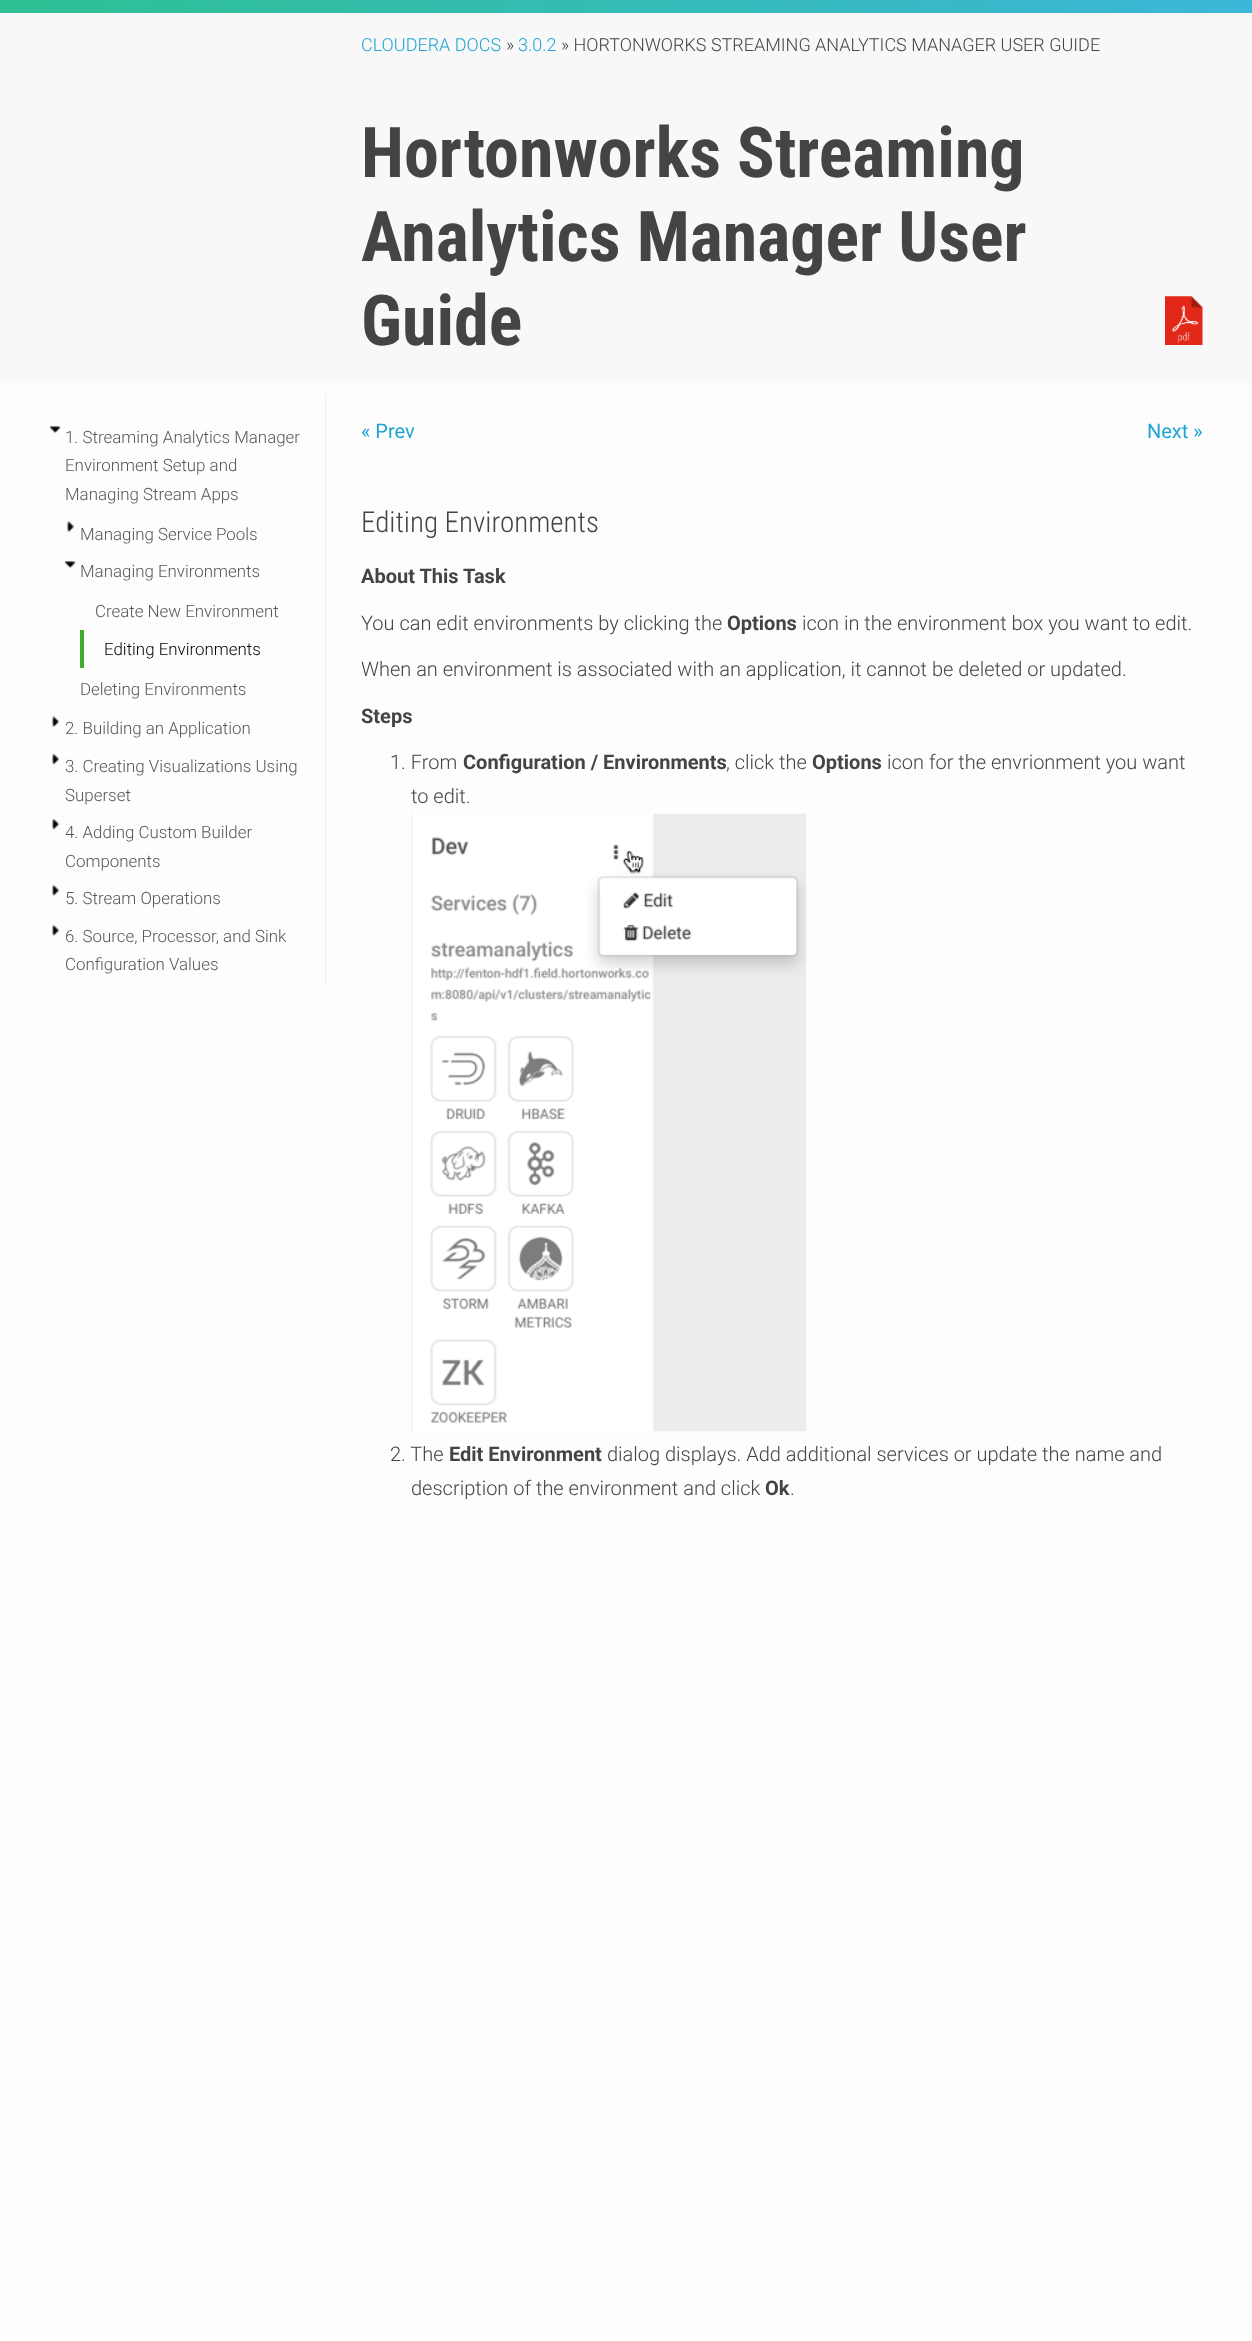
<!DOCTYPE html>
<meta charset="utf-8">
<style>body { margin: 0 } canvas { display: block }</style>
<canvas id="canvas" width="1252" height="2341"></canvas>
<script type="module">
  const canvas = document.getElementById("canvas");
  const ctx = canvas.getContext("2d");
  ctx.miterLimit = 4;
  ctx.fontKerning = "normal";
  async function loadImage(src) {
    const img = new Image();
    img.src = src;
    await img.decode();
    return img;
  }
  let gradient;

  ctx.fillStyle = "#fdfdfd";
  ctx.fillRect(0, 0, 1252, 2341);
  gradient = ctx.createLinearGradient(0, 6.3, 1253, 6.2);
  gradient.addColorStop(0, "#2ec093");
  gradient.addColorStop(1, "#3bb7d9");
  ctx.fillStyle = gradient;
  ctx.fillRect(0, 0, 1252, 13);
  ctx.fillStyle = "#f9f8f8";
  ctx.fillRect(0, 13, 1252, 370);
  ctx.font = "300 18px Roboto";
  ctx.fillStyle = "#1fa4d4";
  ctx.fillText("CLOUDERA DOCS", 361, 51);
  ctx.fillStyle = "#444444";
  ctx.fillText("»", 506, 51);
  ctx.fillStyle = "#1fa4d4";
  ctx.fillText("3.0.2", 518, 51);
  ctx.fillStyle = "#444444";
  ctx.fillText("» HORTONWORKS STREAMING ANALYTICS MANAGER USER GUIDE", 561, 51);
  ctx.font = "bold 70px Roboto Condensed";
  ctx.fillText("Hortonworks Streaming", 361, 177);
  ctx.fillText("Analytics Manager User", 361, 261);
  ctx.fillText("Guide", 361, 345);
  ctx.drawImage(await loadImage("img1.png"), 1165, 296, 38, 49);
  ctx.fillStyle = "#eeeeee";
  ctx.fillRect(325, 395, 1, 588);
  ctx.drawImage(await loadImage("img2.png"), 50, 426, 11, 7);
  ctx.font = "300 16.9px Roboto";
  ctx.fillStyle = "#575757";
  ctx.fillText("1. Streaming Analytics Manager", 65, 443);
  ctx.fillText("Environment Setup and", 65, 471);
  ctx.fillText("Managing Stream Apps", 65, 500);
  ctx.drawImage(await loadImage("img3.png"), 67, 521, 7, 12);
  ctx.fillText("Managing Service Pools", 80, 540);
  ctx.drawImage(await loadImage("img2.png"), 65, 561, 11, 7);
  ctx.fillText("Managing Environments", 80, 577);
  ctx.fillText("Create New Environment", 95, 617);
  ctx.fillStyle = "#3fad2a";
  ctx.fillRect(80, 630, 4, 38);
  ctx.fillStyle = "#000000";
  ctx.fillText("Editing Environments", 104, 655);
  ctx.fillStyle = "#575757";
  ctx.fillText("Deleting Environments", 80, 695);
  ctx.drawImage(await loadImage("img3.png"), 52, 716, 7, 12);
  ctx.fillText("2. Building an Application", 65, 734);
  ctx.drawImage(await loadImage("img4.png"), 52, 753, 7, 12);
  ctx.fillText("3. Creating Visualizations Using", 65, 772);
  ctx.fillText("Superset", 65, 801);
  ctx.drawImage(await loadImage("img4.png"), 52, 818, 7, 12);
  ctx.fillText("4. Adding Custom Builder", 65, 838);
  ctx.fillText("Components", 65, 867);
  ctx.drawImage(await loadImage("img5.png"), 52, 885, 7, 11);
  ctx.fillText("5. Stream Operations", 65, 904);
  ctx.drawImage(await loadImage("img5.png"), 52, 925, 7, 11);
  ctx.fillText("6. Source, Processor, and Sink", 65, 942);
  ctx.fillText("Configuration Values", 65, 970);
  ctx.font = "20px Roboto";
  ctx.fillStyle = "#1fa4d4";
  ctx.fillText("« Prev", 361, 438);
  ctx.fillText("Next »", 1147, 438);
  ctx.font = "300 29px Roboto Condensed";
  ctx.fillStyle = "#444444";
  ctx.fillText("Editing Environments", 361, 532);
  ctx.font = "bold 20px Roboto";
  ctx.fillText("About This Task", 361, 583);
  ctx.font = "300 20px Roboto";
  ctx.fillText("You can edit environments by clicking the", 361, 630);
  ctx.font = "bold 20px Roboto";
  ctx.fillText("Options", 727, 630);
  ctx.font = "300 20px Roboto";
  ctx.fillText("icon in the environment box you want to edit.", 802, 630);
  ctx.fillText("When an environment is associated with an application, it cannot be deleted or updated.", 361, 676);
  ctx.font = "bold 20px Roboto";
  ctx.fillText("Steps", 361, 723);
  ctx.fillText("Configuration / Environments", 463, 769);
  ctx.font = "300 20px Roboto";
  ctx.fillText(", click the", 726, 769);
  ctx.font = "bold 20px Roboto";
  ctx.fillText("Options", 812, 769);
  ctx.font = "300 20px Roboto";
  ctx.fillText("icon for the envrionment you want", 887, 769);
  ctx.fillText("to edit.", 411, 803);
  ctx.fillText("1. From", 390, 769);
  ctx.drawImage(await loadImage("img6.png"), 411, 813, 396, 619);
  ctx.fillText("2. The", 390, 1461);
  ctx.font = "bold 20px Roboto";
  ctx.fillText("Edit Environment", 449, 1461);
  ctx.font = "300 20px Roboto";
  ctx.fillText("dialog displays. Add additional services or update the name and", 607, 1461);
  ctx.fillText("description of the environment and click", 411, 1495);
  ctx.font = "bold 20px Roboto";
  ctx.fillText("Ok", 765, 1495);
  ctx.font = "300 20px Roboto";
  ctx.fillText(".", 790, 1495);
</script>
